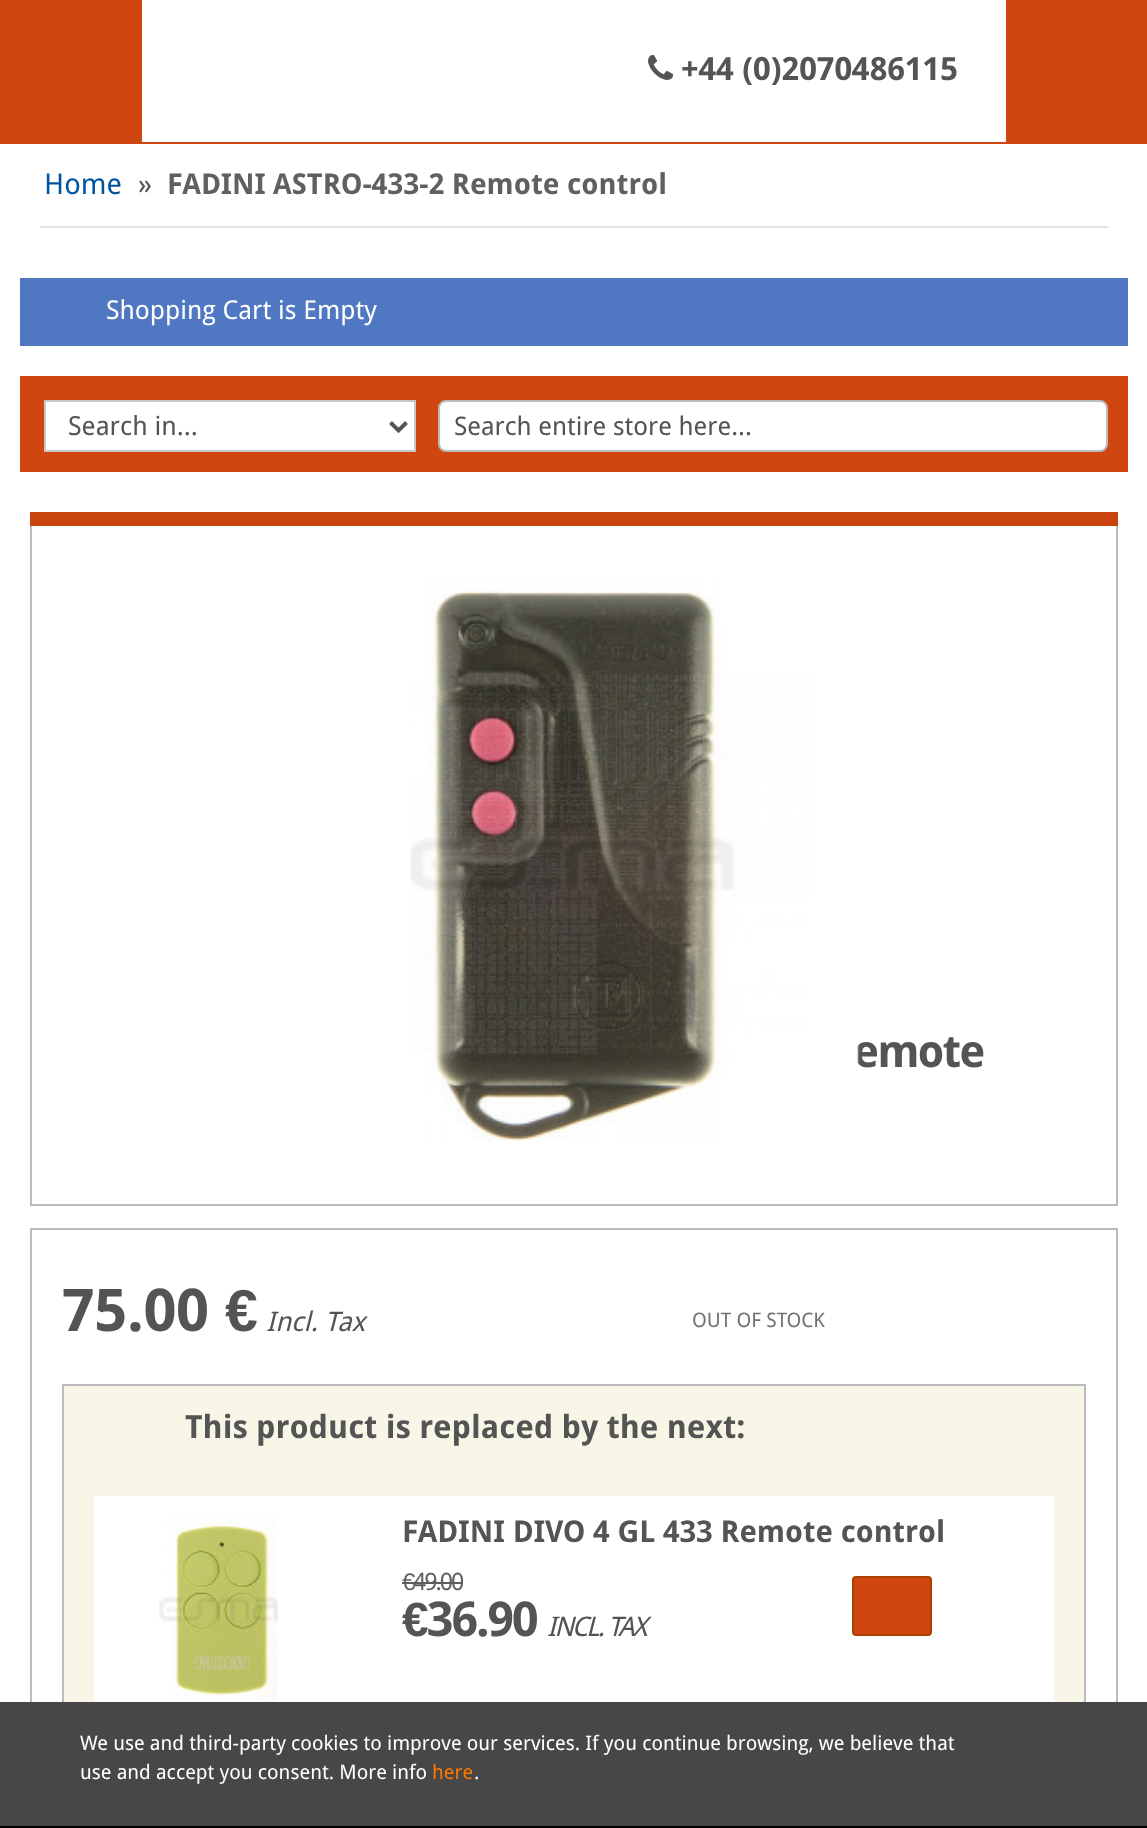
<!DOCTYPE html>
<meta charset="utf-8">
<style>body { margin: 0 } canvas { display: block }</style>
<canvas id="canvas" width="1147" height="1828"></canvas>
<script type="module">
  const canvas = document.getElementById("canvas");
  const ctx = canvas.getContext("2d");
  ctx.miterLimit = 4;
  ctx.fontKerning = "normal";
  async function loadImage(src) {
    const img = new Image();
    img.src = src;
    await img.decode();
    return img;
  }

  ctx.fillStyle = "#ffffff";
  ctx.fillRect(0, 0, 1147, 1828);
  ctx.fillStyle = "#d04610";
  ctx.fillRect(0, 0, 142, 142);
  ctx.fillRect(1006, 0, 141, 142);
  ctx.drawImage(await loadImage("img1.png"), 648, 54, 26, 26);
  ctx.font = "bold 32px Droid Sans";
  ctx.fillStyle = "#545454";
  ctx.fillText("+44 (0)2070486115", 681, 80);
  ctx.fillStyle = "#d04610";
  ctx.fillRect(0, 142, 1147, 2);
  ctx.fillStyle = "#e2e2e2";
  ctx.fillRect(40, 226, 1068, 2);
  ctx.font = "28.75px Droid Sans";
  ctx.fillStyle = "#00569e";
  ctx.fillText("Home", 44, 194);
  ctx.fillStyle = "#545454";
  ctx.fillText("»", 138, 194);
  ctx.font = "bold 28.75px Droid Sans";
  ctx.fillStyle = "#606060";
  ctx.fillText("FADINI ASTRO-433-2 Remote control", 167, 194);
  ctx.fillStyle = "#5078c2";
  ctx.fillRect(20, 278, 1108, 68);
  ctx.font = "26px Droid Sans";
  ctx.fillStyle = "#ffffff";
  ctx.fillText("Shopping Cart is Empty", 106, 319);
  ctx.fillStyle = "#d04610";
  ctx.fillRect(20, 376, 1108, 96);
  ctx.fillStyle = "#ffffff";
  ctx.beginPath();
  ctx.rect(45, 401, 370, 50);
  ctx.fill();
  ctx.strokeStyle = "#c7c7c7";
  ctx.lineWidth = 2;
  ctx.stroke();
  ctx.beginPath();
  ctx.moveTo(390.5, 422.5);
  ctx.lineTo(398.5, 430.5);
  ctx.lineTo(406.5, 422.5);
  ctx.strokeStyle = "#555555";
  ctx.lineWidth = 4;
  ctx.stroke();
  ctx.font = "26.25px Droid Sans";
  ctx.fillStyle = "#545454";
  ctx.fillText("Search in...", 68, 435);
  ctx.fillStyle = "#ffffff";
  ctx.beginPath();
  ctx.roundRect(439, 401, 668, 50, 7);
  ctx.fill();
  ctx.strokeStyle = "#bbbbbb";
  ctx.lineWidth = 2;
  ctx.stroke();
  ctx.font = "25.6px Droid Sans";
  ctx.fillStyle = "#545454";
  ctx.fillText("Search entire store here...", 454, 435);
  ctx.fillStyle = "#c9440f";
  ctx.fillRect(30, 512, 1088, 14);
  ctx.fillStyle = "#bbbbbb";
  ctx.fillRect(1116, 526, 2, 680);
  ctx.fillRect(30, 1204, 1088, 2);
  ctx.fillRect(30, 526, 2, 680);
  ctx.letterSpacing = "-2px";
  ctx.font = "bold 45px Droid Sans";
  ctx.fillStyle = "#545454";
  ctx.fillText("emote", 853, 1067);
  ctx.drawImage(await loadImage("img2.png"), 410, 580, 450, 561);
  ctx.strokeRect(31, 1229, 1086, 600);
  ctx.letterSpacing = "0px";
  ctx.font = "bold 59px Droid Sans";
  ctx.fillText("75.00", 62, 1331);
  ctx.font = "bold 59px Liberation Sans";
  ctx.fillText("€", 225, 1331);
  ctx.font = "italic 27px Droid Sans";
  ctx.fillText("Incl. Tax", 266, 1331);
  ctx.font = "20px Droid Sans";
  ctx.fillStyle = "#727272";
  ctx.fillText("OUT OF STOCK", 692, 1327);
  ctx.fillStyle = "#f8f6e7";
  ctx.fillRect(64, 1386, 1020, 316);
  ctx.strokeRect(63, 1385, 1022, 384);
  ctx.font = "bold 32px Droid Sans";
  ctx.fillStyle = "#545454";
  ctx.fillText("This product is replaced by the next:", 185, 1438);
  ctx.fillStyle = "#ffffff";
  ctx.fillRect(94, 1496, 960, 206);
  ctx.drawImage(await loadImage("img3.png"), 159, 1516, 119, 186);
  ctx.font = "bold 30px Droid Sans";
  ctx.fillStyle = "#545454";
  ctx.fillText("FADINI DIVO 4 GL 433 Remote control", 402, 1542);
  ctx.letterSpacing = "-2px";
  ctx.font = "24px Liberation Sans";
  ctx.fillStyle = "#606060";
  ctx.fillText("€", 402, 1590);
  ctx.font = "24px Droid Sans";
  ctx.fillText("49.00", 413, 1590);
  ctx.fillStyle = "#5e5e5e";
  ctx.fillRect(402, 1582, 60, 2);
  ctx.font = "bold 48px Liberation Sans";
  ctx.fillStyle = "#545454";
  ctx.fillText("€", 402, 1636);
  ctx.font = "bold 48px Droid Sans";
  ctx.fillText("36.90", 427, 1636);
  ctx.font = "italic 27px Droid Sans";
  ctx.fillText("INCL. TAX", 547, 1636);
  ctx.fillStyle = "#d04610";
  ctx.beginPath();
  ctx.roundRect(853, 1577, 78, 58, 3);
  ctx.fill();
  ctx.strokeStyle = "#aa4400";
  ctx.stroke();
  ctx.fillStyle = "#474747";
  ctx.fillRect(0, 1702, 1147, 124);
  ctx.fillStyle = "#000000";
  ctx.fillRect(0, 1826, 1147, 2);
  ctx.letterSpacing = "0px";
  ctx.font = "20px Droid Sans";
  ctx.fillStyle = "#ffffff";
  ctx.fillText("We use and third-party cookies to improve our services. If you continue browsing, we believe that", 80, 1750);
  ctx.fillText("use and accept you consent. More info", 80, 1779);
  ctx.fillStyle = "#ff7700";
  ctx.fillText("here", 432, 1779);
  ctx.fillStyle = "#ffffff";
  ctx.fillText(".", 474, 1779);
</script>
